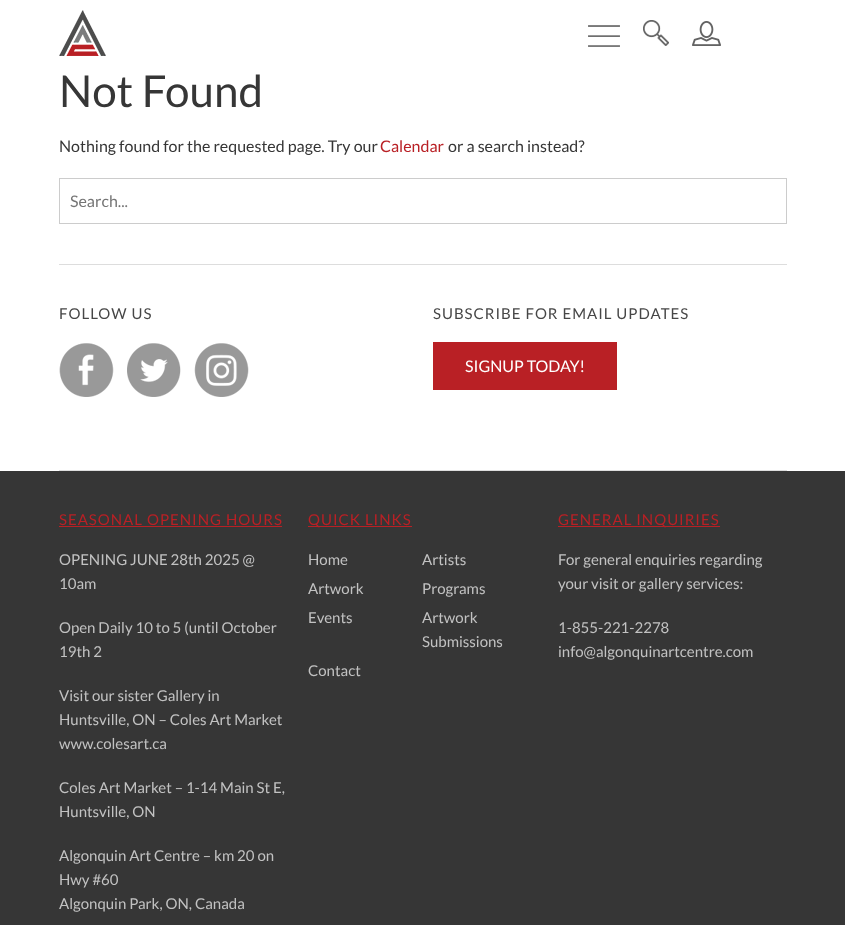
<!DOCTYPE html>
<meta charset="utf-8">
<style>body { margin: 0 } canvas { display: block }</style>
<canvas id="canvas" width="845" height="925"></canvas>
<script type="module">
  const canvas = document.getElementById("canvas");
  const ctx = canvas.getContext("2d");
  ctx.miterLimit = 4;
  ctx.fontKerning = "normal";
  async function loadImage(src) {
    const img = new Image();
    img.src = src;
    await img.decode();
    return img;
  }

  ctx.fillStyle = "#ffffff";
  ctx.fillRect(0, 0, 845, 925);
  ctx.drawImage(await loadImage("img1.png"), 59, 10, 47, 46);
  ctx.drawImage(await loadImage("img2.png"), 588, 25, 32, 22);
  ctx.drawImage(await loadImage("img3.png"), 643, 20, 26, 26);
  ctx.drawImage(await loadImage("img4.png"), 692, 21, 29, 25);
  ctx.font = "44px Lato";
  ctx.fillStyle = "#363636";
  ctx.fillText("Not Found", 59, 107);
  ctx.font = "16px Lato";
  ctx.fillText("Nothing found for the requested page. Try our", 59, 152);
  ctx.fillStyle = "#b92025";
  ctx.fillText("Calendar", 380, 152);
  ctx.fillStyle = "#363636";
  ctx.fillText("or a search instead?", 448, 152);
  ctx.strokeStyle = "#cccccc";
  ctx.strokeRect(59.5, 178.5, 727, 45);
  ctx.fillStyle = "#757575";
  ctx.fillText("Search...", 70, 207);
  ctx.fillStyle = "#dddddd";
  ctx.fillRect(59, 264, 728, 1);
  ctx.fillRect(59, 470, 728, 1);
  ctx.letterSpacing = "1px";
  ctx.font = "15px Lato";
  ctx.fillStyle = "#464646";
  ctx.fillText("FOLLOW US", 59, 319);
  ctx.drawImage(await loadImage("img5.png"), 59, 343, 55, 54);
  ctx.drawImage(await loadImage("img6.png"), 127, 343, 54, 54);
  ctx.drawImage(await loadImage("img7.png"), 194, 343, 55, 54);
  ctx.fillText("SUBSCRIBE FOR EMAIL UPDATES", 433, 319);
  ctx.fillStyle = "#b92025";
  ctx.fillRect(433, 342, 184, 48);
  ctx.letterSpacing = "0px";
  ctx.font = "16px Lato";
  ctx.fillStyle = "#ffffff";
  ctx.fillText("SIGNUP TODAY!", 465, 372);
  ctx.fillStyle = "#363636";
  ctx.fillRect(0, 471, 845, 454);
  ctx.letterSpacing = "1px";
  ctx.font = "15px Lato";
  ctx.fillStyle = "#b92025";
  ctx.fillText("SEASONAL OPENING HOURS", 59, 525);
  ctx.fillRect(59, 526, 223, 1);
  ctx.letterSpacing = "0px";
  ctx.fillStyle = "#c2c2c2";
  ctx.fillText("OPENING JUNE 28th 2025 @", 59, 565);
  ctx.fillText("10am", 59, 589);
  ctx.fillText("Open Daily 10 to 5 (until October", 59, 633);
  ctx.fillText("19th 2", 59, 657);
  ctx.fillText("Visit our sister Gallery in", 59, 701);
  ctx.fillText("Huntsville, ON – Coles Art Market", 59, 725);
  ctx.fillText("www.colesart.ca", 59, 749);
  ctx.fillText("Coles Art Market – 1-14 Main St E,", 59, 793);
  ctx.fillText("Huntsville, ON", 59, 817);
  ctx.fillText("Algonquin Art Centre – km 20 on", 59, 861);
  ctx.fillText("Hwy #60", 59, 885);
  ctx.fillText("Algonquin Park, ON, Canada", 59, 909);
  ctx.fillStyle = "#b92025";
  ctx.fillRect(308, 526, 104, 1);
  ctx.letterSpacing = "1px";
  ctx.fillText("QUICK LINKS", 308, 525);
  ctx.letterSpacing = "0px";
  ctx.fillStyle = "#c2c2c2";
  ctx.fillText("Home", 308, 565);
  ctx.fillText("Artists", 422, 565);
  ctx.fillText("Artwork", 308, 594);
  ctx.fillText("Programs", 422, 594);
  ctx.fillText("Events", 308, 623);
  ctx.fillText("Artwork", 422, 623);
  ctx.fillText("Submissions", 422, 647);
  ctx.fillText("Contact", 308, 676);
  ctx.fillStyle = "#b92025";
  ctx.fillRect(558, 526, 162, 1);
  ctx.letterSpacing = "1px";
  ctx.fillText("GENERAL INQUIRIES", 558, 525);
  ctx.letterSpacing = "0px";
  ctx.fillStyle = "#c2c2c2";
  ctx.fillText("For general enquiries regarding", 558, 565);
  ctx.fillText("your visit or gallery services:", 558, 589);
  ctx.fillText("1-855-221-2278", 558, 633);
  ctx.fillText("info@algonquinartcentre.com", 558, 657);
</script>
